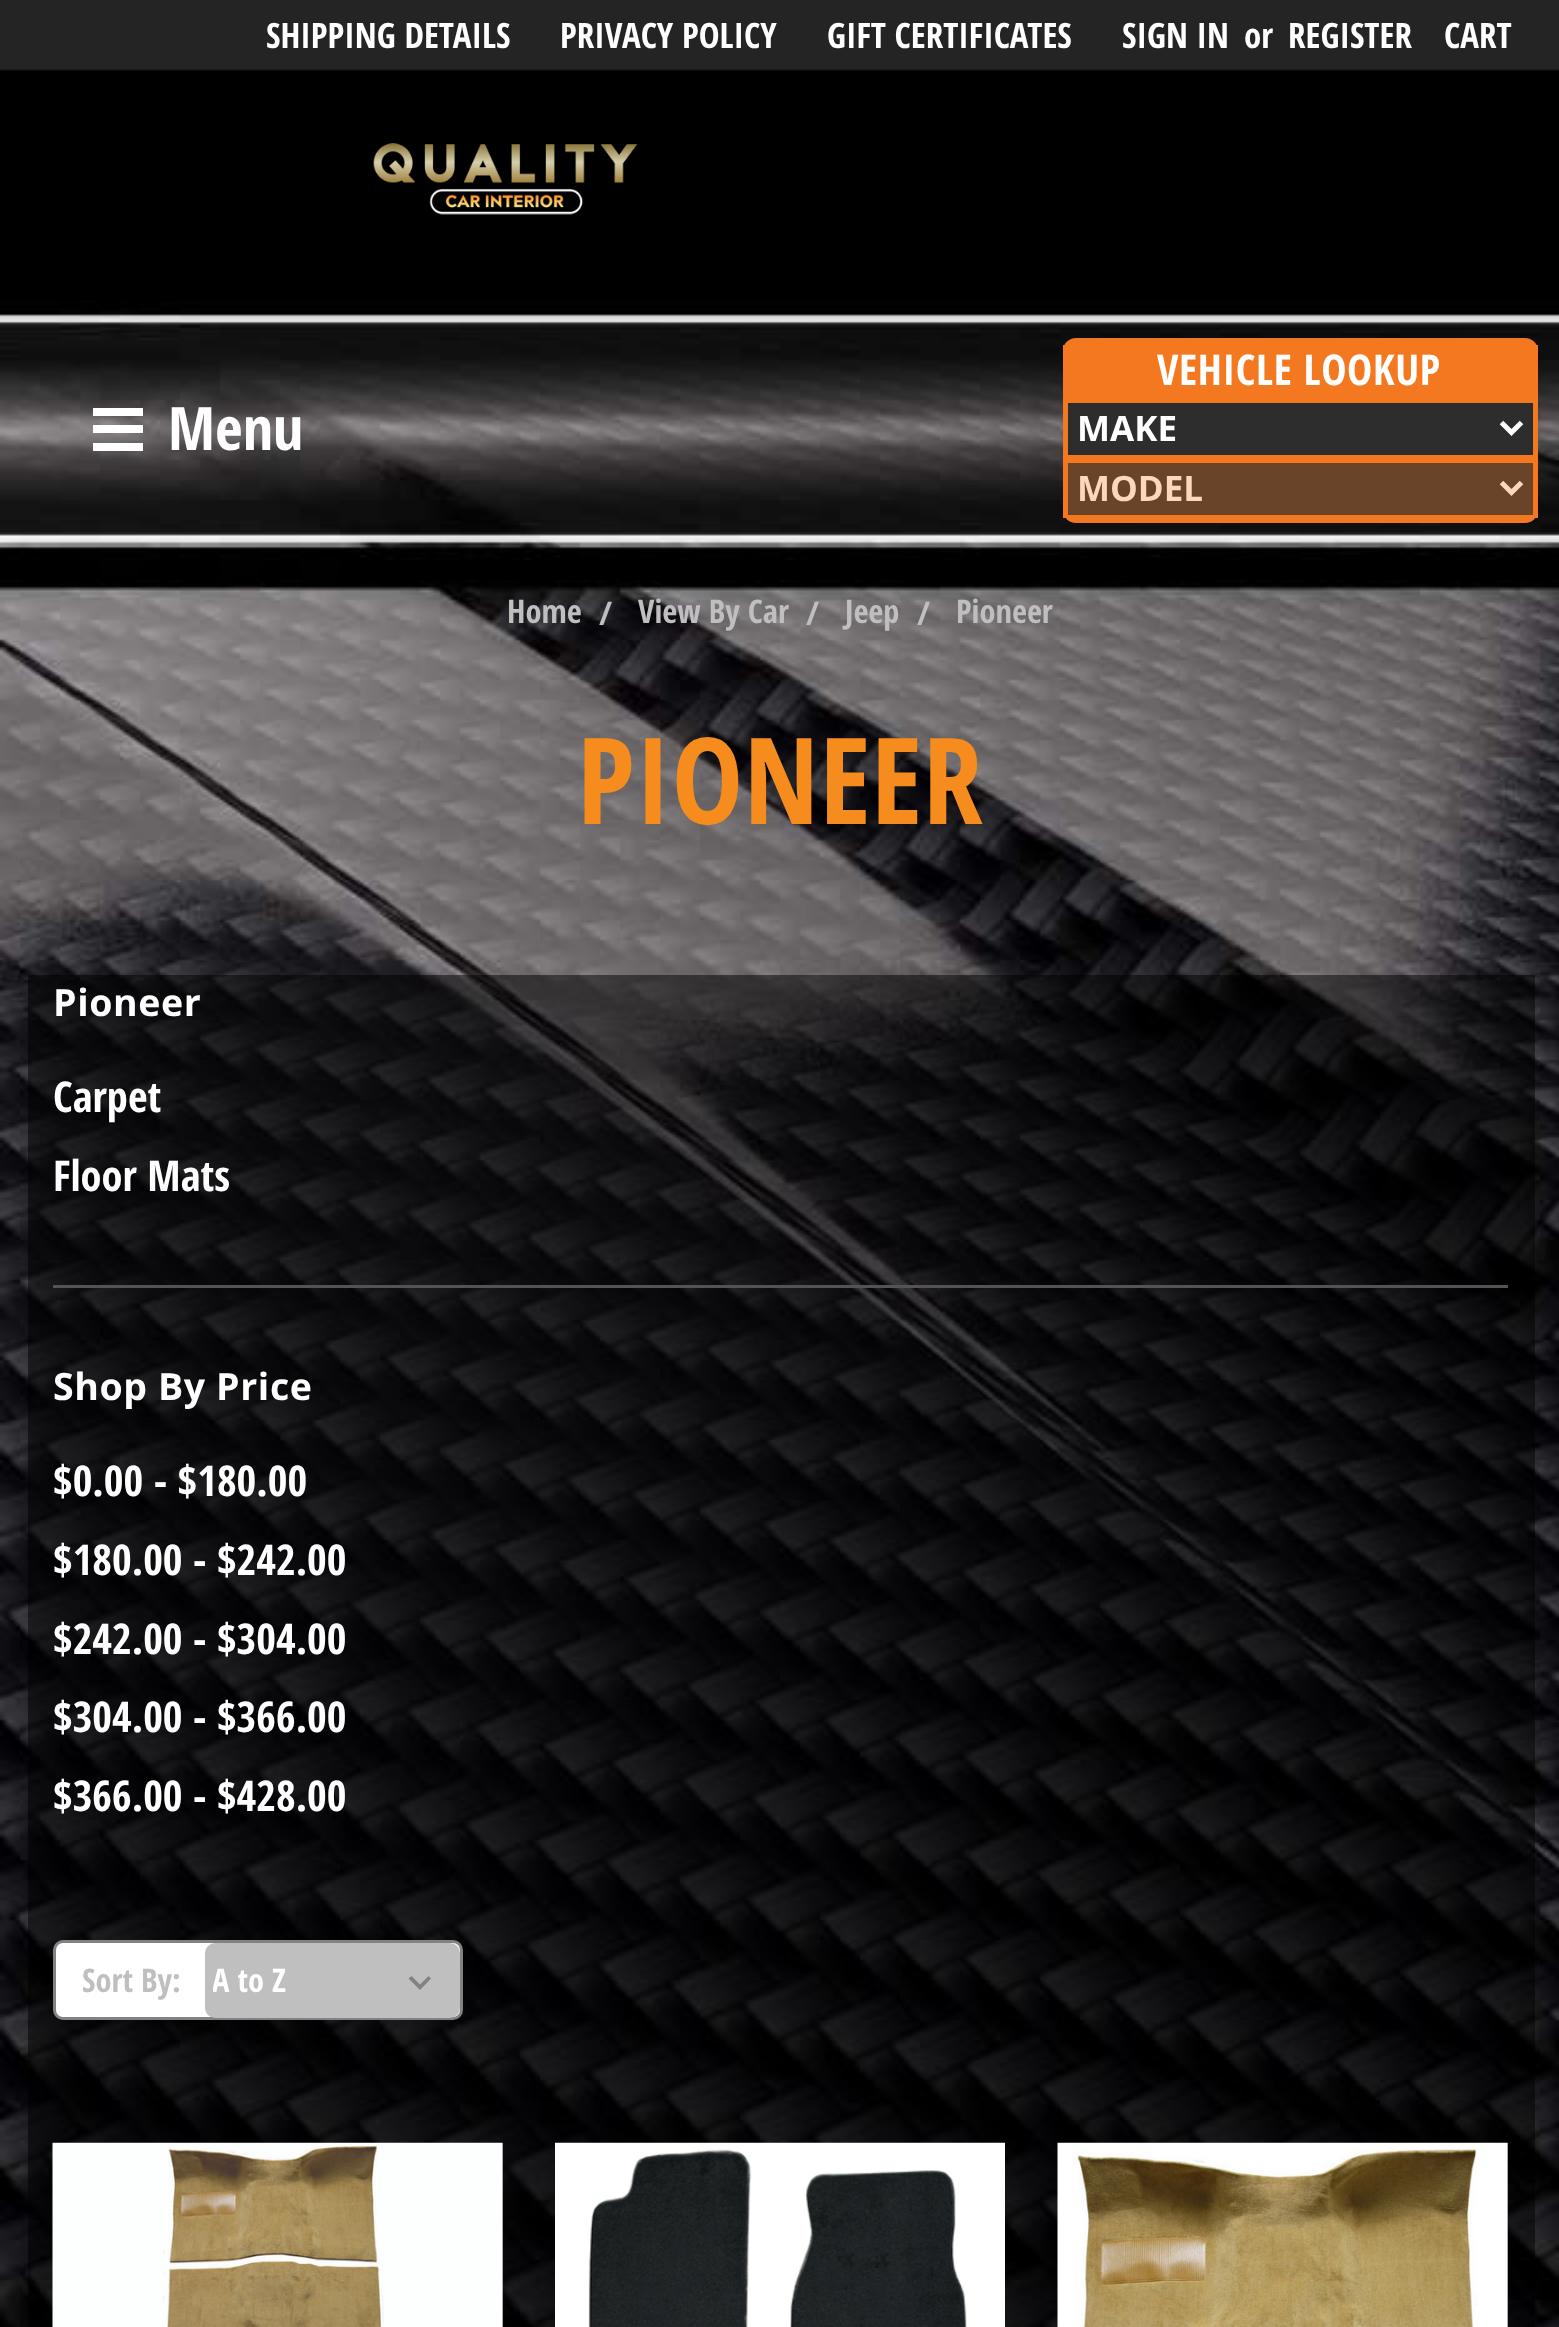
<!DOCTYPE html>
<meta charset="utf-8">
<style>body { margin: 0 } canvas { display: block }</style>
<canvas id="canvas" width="1559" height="2327"></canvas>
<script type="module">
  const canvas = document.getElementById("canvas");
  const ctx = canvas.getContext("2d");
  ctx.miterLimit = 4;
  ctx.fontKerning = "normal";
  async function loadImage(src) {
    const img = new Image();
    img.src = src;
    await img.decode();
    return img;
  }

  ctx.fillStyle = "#ffffff";
  ctx.fillRect(0, 0, 1559, 2327);
  ctx.drawImage(await loadImage("img1.png"), 0, 0, 1559, 2327);
  ctx.font = "bold 35px Open Sans Condensed";
  ctx.fillText("SHIPPING DETAILS", 266, 48);
  ctx.fillText("PRIVACY POLICY", 560, 48);
  ctx.fillText("GIFT CERTIFICATES", 827, 48);
  ctx.fillText("SIGN IN", 1122, 48);
  ctx.fillText("or", 1244, 48);
  ctx.fillText("REGISTER", 1288, 48);
  ctx.fillText("CART", 1444, 48);
  ctx.drawImage(await loadImage("img2.png"), 373, 143, 265, 72);
  ctx.fillRect(93, 425, 50, 8);
  ctx.fillRect(93, 408, 50, 8);
  ctx.fillRect(93, 443, 50, 8);
  ctx.font = "bold 60px Open Sans Condensed";
  ctx.fillText("Menu", 168, 450);
  ctx.fillStyle = "#f47820";
  ctx.beginPath();
  ctx.roundRect(1063, 338, 475, 185, 13);
  ctx.fill();
  ctx.fillRect(1535, 345, 3, 173);
  ctx.fillRect(1063, 345, 3, 173);
  ctx.letterSpacing = "0.6px";
  ctx.font = "bold 42.5px Open Sans Condensed";
  ctx.fillStyle = "#ffffff";
  ctx.fillText("VEHICLE LOOKUP", 1157, 385);
  ctx.fillStyle = "#2e2d2d";
  ctx.fillRect(1068, 403, 465, 52);
  ctx.beginPath();
  ctx.moveTo(1501.5, 422.5);
  ctx.lineTo(1511.5, 432.5);
  ctx.lineTo(1521.5, 422.5);
  ctx.strokeStyle = "#ffffff";
  ctx.lineWidth = 5;
  ctx.stroke();
  ctx.letterSpacing = "0px";
  ctx.font = "bold 35px Open Sans";
  ctx.fillStyle = "#ffffff";
  ctx.fillText("MAKE", 1077, 441);
  ctx.fillStyle = "#694429";
  ctx.fillRect(1068, 463, 465, 52);
  ctx.beginPath();
  ctx.moveTo(1501.5, 482.5);
  ctx.lineTo(1511.5, 492.5);
  ctx.lineTo(1521.5, 482.5);
  ctx.strokeStyle = "#fcd7bc";
  ctx.stroke();
  ctx.fillStyle = "#fcd7bc";
  ctx.fillText("MODEL", 1077, 501);
  ctx.font = "bold 32.5px Open Sans Condensed";
  ctx.fillStyle = "#bfbfbf";
  ctx.fillText("Home", 507, 623);
  ctx.fillText("/", 599, 625);
  ctx.fillText("View By Car", 638, 623);
  ctx.fillText("/", 806, 625);
  ctx.fillText("Jeep", 845, 623);
  ctx.fillText("/", 917, 625);
  ctx.fillText("Pioneer", 956, 623);
  ctx.letterSpacing = "0.6px";
  ctx.font = "bold 120px Open Sans Condensed";
  ctx.fillStyle = "#f78c1e";
  ctx.fillText("PIONEER", 577, 824);
  ctx.fillStyle = "rgba(0, 0, 0, 0.5)";
  ctx.fillRect(28, 975, 1507, 1352);
  ctx.font = "bold 37.5px Open Sans";
  ctx.fillStyle = "#ffffff";
  ctx.fillText("Pioneer", 53, 1016);
  ctx.letterSpacing = "0px";
  ctx.font = "bold 42.5px Open Sans Condensed";
  ctx.fillText("Carpet", 53, 1112);
  ctx.fillText("Floor Mats", 53, 1191);
  ctx.fillStyle = "#535353";
  ctx.fillRect(53, 1285, 1455, 3);
  ctx.letterSpacing = "0.6px";
  ctx.font = "bold 37.5px Open Sans";
  ctx.fillStyle = "#ffffff";
  ctx.fillText("Shop By Price", 53, 1400);
  ctx.letterSpacing = "0px";
  ctx.font = "bold 42.5px Open Sans Condensed";
  ctx.fillText("$0.00 - $180.00", 53, 1496);
  ctx.fillText("$180.00 - $242.00", 53, 1575);
  ctx.fillText("$242.00 - $304.00", 53, 1654);
  ctx.fillText("$304.00 - $366.00", 53, 1732);
  ctx.fillText("$366.00 - $428.00", 53, 1811);
  ctx.beginPath();
  ctx.roundRect(54.5, 1941.5, 407, 77, 8.5);
  ctx.fill();
  ctx.strokeStyle = "#828282";
  ctx.lineWidth = 3;
  ctx.stroke();
  ctx.font = "bold 32.5px Open Sans Condensed";
  ctx.fillStyle = "#bfbfbf";
  ctx.fillText("Sort By:", 82, 1992);
  ctx.beginPath();
  ctx.roundRect(205, 1943, 255, 75, 10);
  ctx.fill();
  ctx.fillStyle = "#828282";
  ctx.beginPath();
  ctx.moveTo(428.5, 1976);
  ctx.lineTo(420, 1984.5);
  ctx.lineTo(411.5, 1976);
  ctx.lineTo(408.5, 1978.5);
  ctx.lineTo(420, 1990);
  ctx.lineTo(431, 1978.5);
  ctx.closePath();
  ctx.fill();
  ctx.save();
  ctx.beginPath();
  ctx.rect(213, 1963, 222, 35);
  ctx.clip();
  ctx.fillStyle = "#ffffff";
  ctx.fillText("A to Z", 212, 1992);
  ctx.restore();
  ctx.fillStyle = "#585858";
  ctx.fillRect(502, 2143, 1, 184);
  ctx.drawImage(await loadImage("img3.png"), 52, 2142, 451, 185);
  ctx.drawImage(await loadImage("img4.png"), 555, 2142, 450, 185);
  ctx.fillRect(1507, 2143, 1, 184);
  ctx.drawImage(await loadImage("img5.png"), 1057, 2142, 451, 185);
</script>
